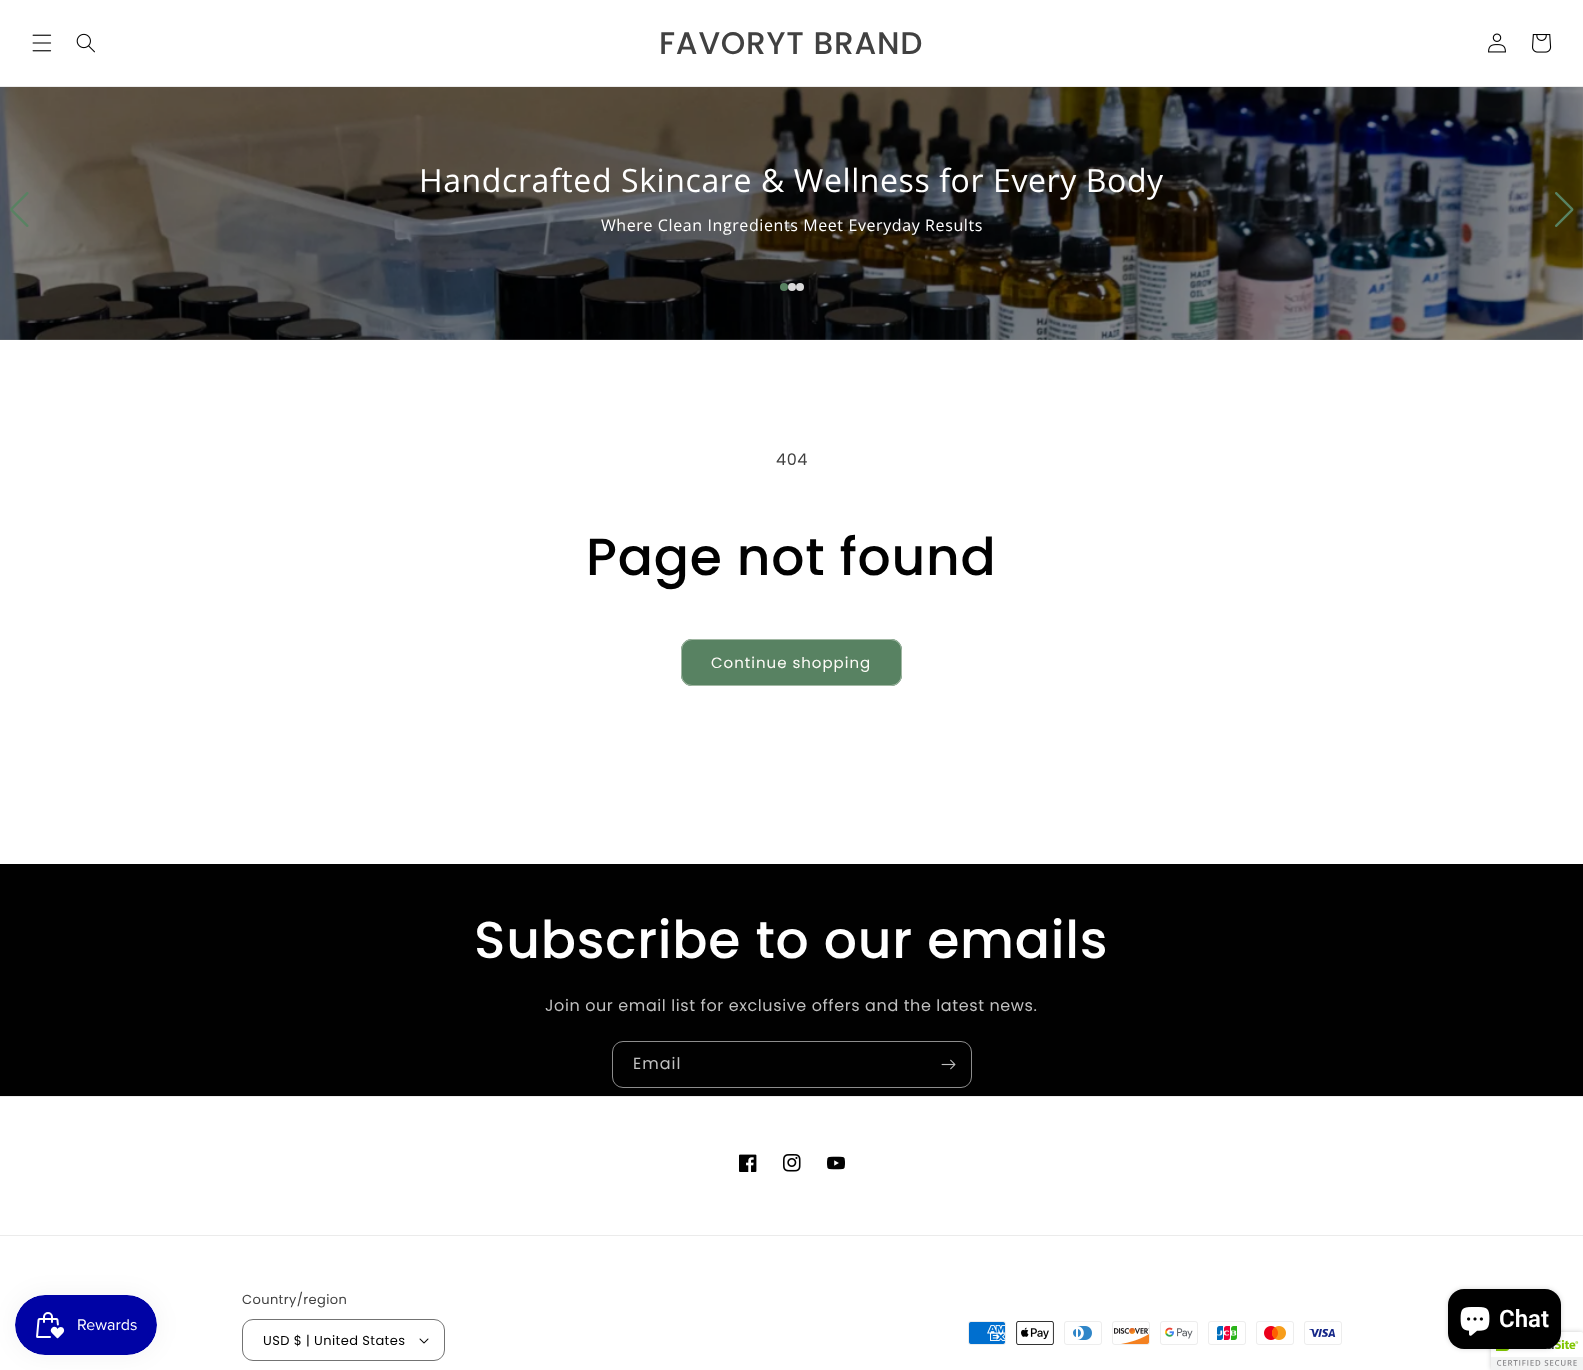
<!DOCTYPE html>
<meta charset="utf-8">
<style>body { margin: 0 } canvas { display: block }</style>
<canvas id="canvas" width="1583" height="1370"></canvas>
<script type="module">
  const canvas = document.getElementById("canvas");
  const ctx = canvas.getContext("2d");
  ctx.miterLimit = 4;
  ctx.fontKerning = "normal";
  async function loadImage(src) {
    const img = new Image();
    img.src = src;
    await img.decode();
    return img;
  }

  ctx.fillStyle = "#ffffff";
  ctx.fillRect(0, 0, 1583, 1370);
  ctx.fillStyle = "#8c8c8c";
  ctx.fillRect(0, 87, 1583, 253);
  ctx.fillStyle = "#ebebeb";
  ctx.fillRect(0, 86, 1583, 1);
  ctx.drawImage(await loadImage("img1.png"), 32, 34, 20, 18);
  ctx.drawImage(await loadImage("img2.png"), 76, 33, 19, 20);
  ctx.letterSpacing = "0.75px";
  ctx.font = "500 31.25px Poppins";
  ctx.fillStyle = "#414141";
  ctx.fillText("FAVORYT BRAND", 659, 54);
  ctx.drawImage(await loadImage("img3.png"), 1488, 33, 18, 20);
  ctx.drawImage(await loadImage("img4.png"), 1532, 34, 20, 19);
  ctx.drawImage(await loadImage("img6.png"), 0, 87, 1583, 253);
  ctx.drawImage(await loadImage("img5.png"), 10, 192, 19, 35);
  ctx.letterSpacing = "0.6px";
  ctx.font = "32px Open Sans";
  ctx.fillStyle = "#ffffff";
  ctx.fillText("Handcrafted Skincare & Wellness for Every Body", 419, 192);
  ctx.font = "16px Open Sans";
  ctx.fillText("Where Clean Ingredients Meet Everyday Results", 601, 231);
  ctx.drawImage(await loadImage("img7.png"), 1555, 192, 19, 35);
  ctx.fillStyle = "#588262";
  ctx.beginPath();
  ctx.arc(784, 287, 4, 0, Math.PI * 2);
  ctx.fill();
  ctx.fillStyle = "#d9d9d9";
  ctx.beginPath();
  ctx.arc(792, 287, 4, 0, Math.PI * 2);
  ctx.fill();
  ctx.beginPath();
  ctx.arc(800, 287, 4, 0, Math.PI * 2);
  ctx.fill();
  ctx.font = "16px Poppins";
  ctx.fillStyle = "#414141";
  ctx.fillText("404", 776, 465);
  ctx.letterSpacing = "0.75px";
  ctx.font = "500 52px Poppins";
  ctx.fillStyle = "#010101";
  ctx.fillText("Page not found", 586, 575);
  ctx.fillStyle = "#588262";
  ctx.beginPath();
  ctx.roundRect(681, 639, 221, 47, 11);
  ctx.fill();
  ctx.beginPath();
  ctx.roundRect(681.5, 639.5, 220, 46, 10.5);
  ctx.strokeStyle = "#588262";
  ctx.stroke();
  ctx.beginPath();
  ctx.roundRect(681.5, 639.5, 220, 46, 10.5);
  ctx.strokeStyle = "rgba(253, 251, 247, 0.45)";
  ctx.stroke();
  ctx.letterSpacing = "1px";
  ctx.font = "15px Poppins";
  ctx.fillStyle = "#fdfbf7";
  ctx.fillText("Continue shopping", 711, 668);
  ctx.fillStyle = "#010101";
  ctx.fillRect(0, 864, 1583, 232);
  ctx.letterSpacing = "0.75px";
  ctx.font = "500 52px Poppins";
  ctx.fillStyle = "#ffffff";
  ctx.fillText("Subscribe to our emails", 474, 958);
  ctx.letterSpacing = "0.6px";
  ctx.font = "16px Poppins";
  ctx.fillStyle = "#c0c0c0";
  ctx.fillText("Join our email list for exclusive offers and the latest news.", 545, 1011);
  ctx.beginPath();
  ctx.roundRect(612.5, 1041.5, 359, 46, 10.5);
  ctx.strokeStyle = "#8d8d8d";
  ctx.stroke();
  ctx.letterSpacing = "1px";
  ctx.fillText("Email", 633, 1069);
  ctx.drawImage(await loadImage("img8.png"), 941, 1059, 15, 11);
  ctx.fillStyle = "rgba(0, 0, 0, 0.05)";
  ctx.filter = "blur(12.5px)";
  ctx.beginPath();
  ctx.roundRect(15, 1295, 142, 60, 30);
  ctx.fill();
  ctx.filter = "none";
  ctx.drawImage(await loadImage("img9.png"), 15, 1295, 142, 60);
  ctx.fillStyle = "#ebebeb";
  ctx.fillRect(0, 1096, 1583, 1);
  ctx.drawImage(await loadImage("img10.png"), 739, 1154, 18, 18);
  ctx.drawImage(await loadImage("img11.png"), 783, 1154, 18, 18);
  ctx.drawImage(await loadImage("img12.png"), 827, 1156, 18, 14);
  ctx.fillRect(0, 1235, 1583, 1);
  ctx.letterSpacing = "0.4px";
  ctx.font = "13px Poppins";
  ctx.fillStyle = "#414141";
  ctx.fillText("Country/region", 242, 1304);
  ctx.drawImage(await loadImage("img13.png"), 419, 1338, 10, 6);
  ctx.beginPath();
  ctx.roundRect(242.5, 1319.5, 202, 41, 10.5);
  ctx.strokeStyle = "#737373";
  ctx.stroke();
  ctx.fillStyle = "#010101";
  ctx.fillText("USD $ | United States", 263, 1345);
  ctx.drawImage(await loadImage("img14.png"), 968, 1321, 38, 24);
  ctx.drawImage(await loadImage("img15.png"), 1016, 1321, 38, 24);
  ctx.drawImage(await loadImage("img16.png"), 1064, 1321, 38, 24);
  ctx.drawImage(await loadImage("img17.png"), 1112, 1321, 38, 24);
  ctx.drawImage(await loadImage("img18.png"), 1160, 1321, 38, 24);
  ctx.drawImage(await loadImage("img19.png"), 1208, 1321, 38, 24);
  ctx.drawImage(await loadImage("img20.png"), 1256, 1321, 38, 24);
  ctx.drawImage(await loadImage("img21.png"), 1304, 1321, 38, 24);
  ctx.fillStyle = "rgba(0, 0, 0, 0.2)";
  ctx.filter = "blur(2.5px)";
  ctx.beginPath();
  ctx.roundRect(1491, 1332, 92, 38, 2);
  ctx.fill();
  ctx.filter = "none";
  ctx.fillStyle = "#ffffff";
  ctx.fillRect(1581, 1332, 2, 2);
  ctx.drawImage(await loadImage("img23.png"), 1491, 1332, 92, 38);
  ctx.fillStyle = "rgba(0, 0, 0, 0.15)";
  ctx.filter = "blur(2.5px)";
  ctx.beginPath();
  ctx.roundRect(1448, 1289, 113, 60, 16);
  ctx.fill();
  ctx.filter = "none";
  ctx.fillStyle = "#000000";
  ctx.beginPath();
  ctx.roundRect(1448, 1289, 113, 60, 16);
  ctx.fill();
  ctx.drawImage(await loadImage("img22.png"), 1460, 1307, 30, 29);
  ctx.letterSpacing = "0px";
  ctx.font = "600 24px Roboto";
  ctx.fillStyle = "#ffffff";
  ctx.fillText("Chat", 1499, 1327);
</script>
